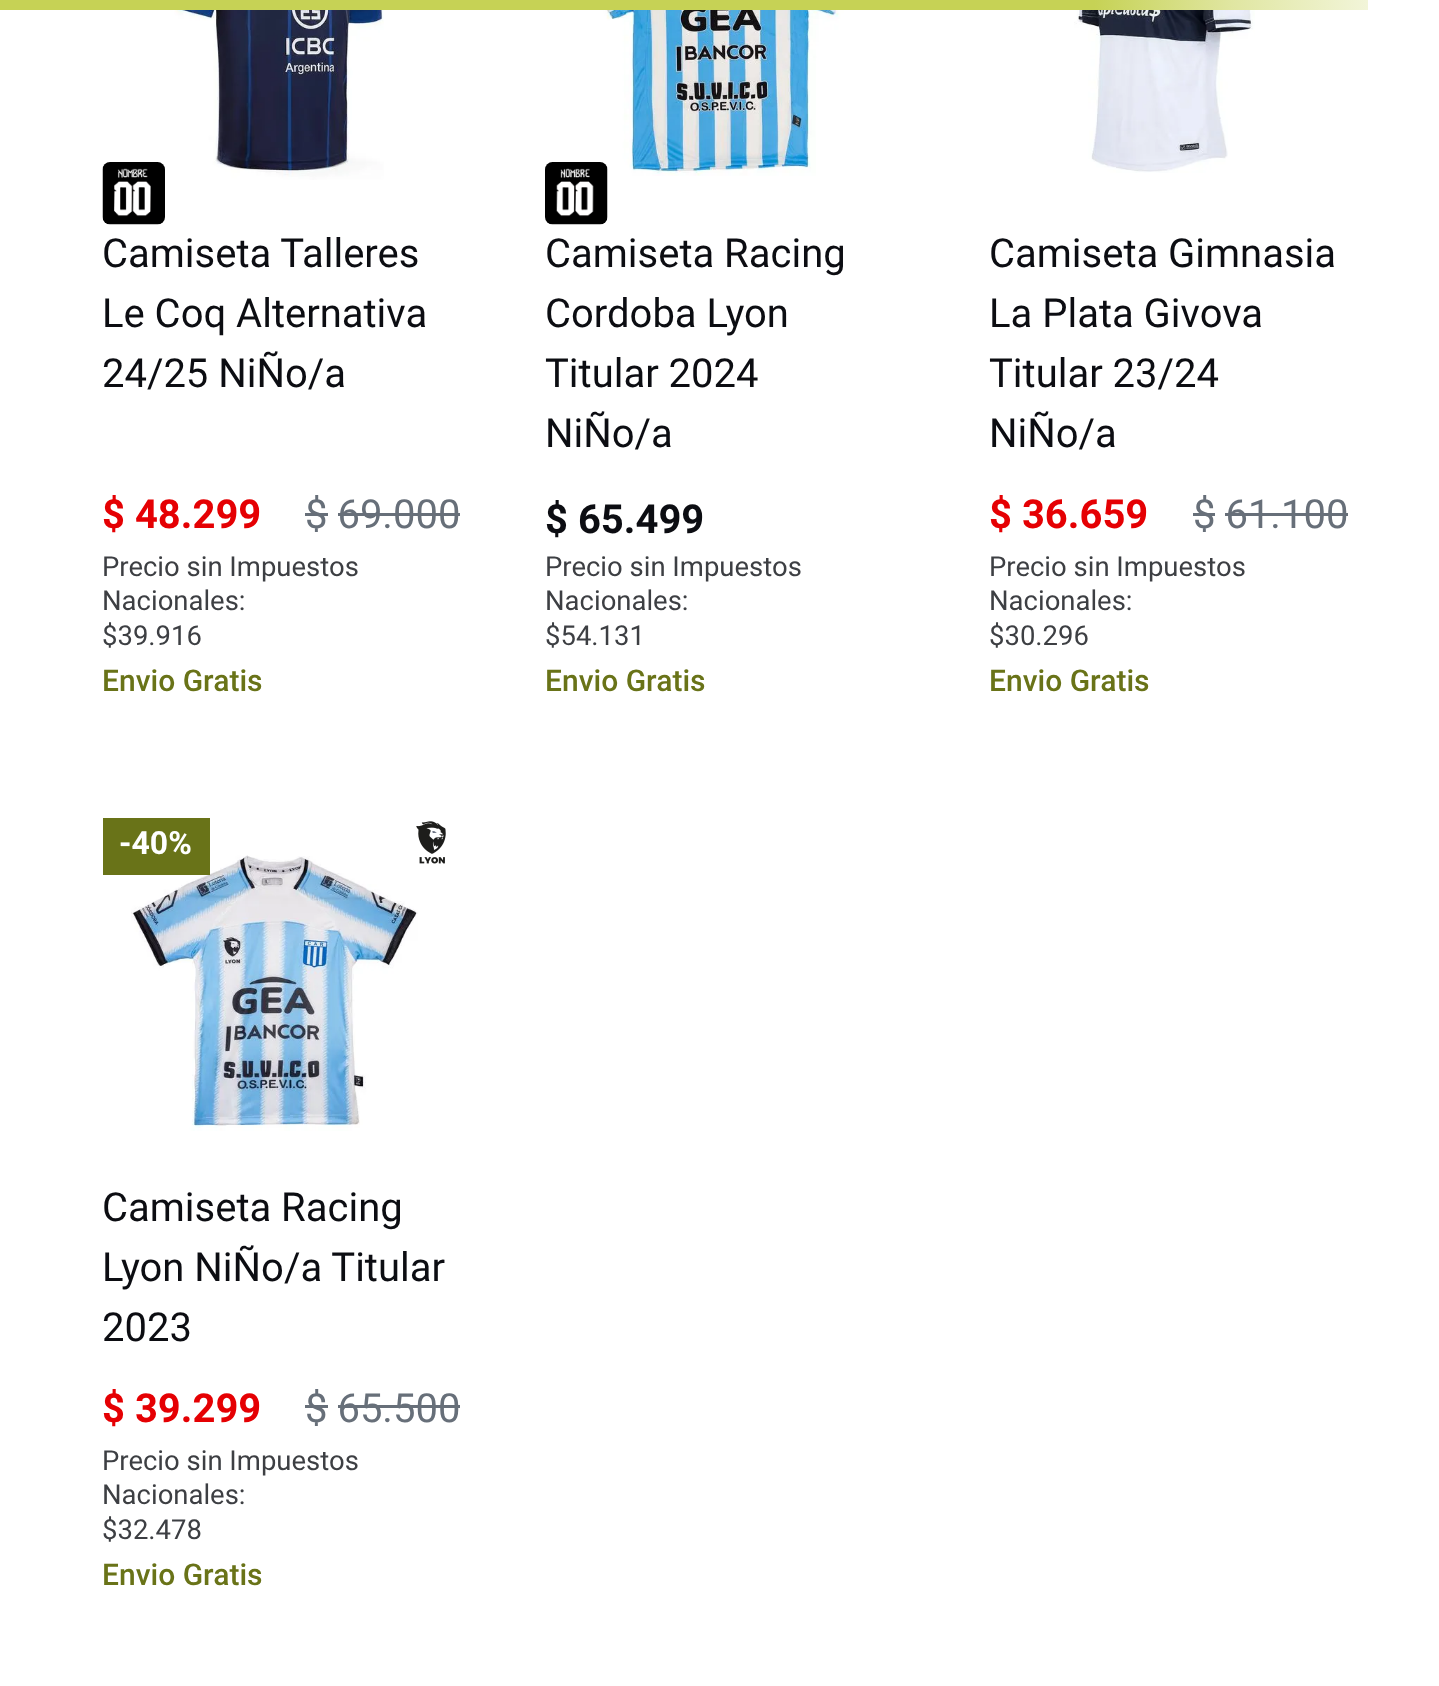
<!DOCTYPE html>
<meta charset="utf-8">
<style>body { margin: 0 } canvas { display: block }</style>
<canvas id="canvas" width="1439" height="1686"></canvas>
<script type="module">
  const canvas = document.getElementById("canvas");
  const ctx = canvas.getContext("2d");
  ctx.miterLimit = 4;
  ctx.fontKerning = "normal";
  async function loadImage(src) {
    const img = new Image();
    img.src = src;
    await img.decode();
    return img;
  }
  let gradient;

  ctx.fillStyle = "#ffffff";
  ctx.fillRect(0, 0, 1439, 1686);
  gradient = ctx.createLinearGradient(0, 5, 1368, 5);
  gradient.addColorStop(0.8, "#c6d255");
  gradient.addColorStop(0.9, "#e0e6a1");
  gradient.addColorStop(1, "#f2f5d9");
  ctx.fillStyle = gradient;
  ctx.fillRect(0, 0, 1368, 10);
  ctx.drawImage(await loadImage("img1.png"), 170, 10, 214, 170);
  ctx.drawImage(await loadImage("img2.png"), 102, 162, 63, 63);
  ctx.font = "40px Roboto";
  ctx.fillStyle = "#0c0d12";
  ctx.fillText("Camiseta Talleres", 102, 267);
  ctx.fillText("Le Coq Alternativa", 102, 327);
  ctx.fillText("24/25 NiÑo/a", 102, 387);
  ctx.font = "bold 40px Roboto";
  ctx.fillStyle = "#e50003";
  ctx.fillText("$ 48.299", 102, 528);
  ctx.font = "40px Heebo";
  ctx.fillStyle = "#676f79";
  ctx.fillText("$ 69.000", 305, 528);
  ctx.fillRect(305, 513, 23, 3);
  ctx.fillRect(338, 513, 122, 3);
  ctx.font = "27.5px Roboto";
  ctx.fillStyle = "#3d3f43";
  ctx.fillText("Precio sin Impuestos", 102, 576);
  ctx.fillText("Nacionales:", 102, 610);
  ctx.fillText("$39.916", 102, 645);
  ctx.font = "500 30px Roboto";
  ctx.fillStyle = "#697318";
  ctx.fillText("Envio Gratis", 102, 691);
  ctx.drawImage(await loadImage("img3.png"), 598, 10, 246, 166);
  ctx.drawImage(await loadImage("img4.png"), 545, 162, 63, 63);
  ctx.font = "40px Roboto";
  ctx.fillStyle = "#0c0d12";
  ctx.fillText("Camiseta Racing", 545, 267);
  ctx.fillText("Cordoba Lyon", 545, 327);
  ctx.fillText("Titular 2024", 545, 387);
  ctx.fillText("NiÑo/a", 545, 447);
  ctx.font = "bold 40px Roboto";
  ctx.fillText("$ 65.499", 545, 533);
  ctx.font = "27.5px Roboto";
  ctx.fillStyle = "#3d3f43";
  ctx.fillText("Precio sin Impuestos", 545, 576);
  ctx.fillText("Nacionales:", 545, 610);
  ctx.fillText("$54.131", 545, 645);
  ctx.font = "500 30px Roboto";
  ctx.fillStyle = "#697318";
  ctx.fillText("Envio Gratis", 545, 691);
  ctx.drawImage(await loadImage("img5.png"), 1074, 10, 181, 163);
  ctx.font = "40px Roboto";
  ctx.fillStyle = "#0c0d12";
  ctx.fillText("Camiseta Gimnasia", 989, 267);
  ctx.fillText("La Plata Givova", 989, 327);
  ctx.fillText("Titular 23/24", 989, 387);
  ctx.fillText("NiÑo/a", 989, 447);
  ctx.font = "bold 40px Roboto";
  ctx.fillStyle = "#e50003";
  ctx.fillText("$ 36.659", 989, 528);
  ctx.font = "40px Heebo";
  ctx.fillStyle = "#676f79";
  ctx.fillText("$ 61.100", 1193, 528);
  ctx.fillRect(1193, 513, 22, 3);
  ctx.fillRect(1225, 513, 123, 3);
  ctx.font = "27.5px Roboto";
  ctx.fillStyle = "#3d3f43";
  ctx.fillText("Precio sin Impuestos", 989, 576);
  ctx.fillText("Nacionales:", 989, 610);
  ctx.fillText("$30.296", 989, 645);
  ctx.font = "500 30px Roboto";
  ctx.fillStyle = "#697318";
  ctx.fillText("Envio Gratis", 989, 691);
  ctx.drawImage(await loadImage("img7.png"), 131, 855, 287, 276);
  ctx.fillRect(103, 818, 107, 57);
  ctx.font = "bold 32px Roboto";
  ctx.fillStyle = "#ffffff";
  ctx.fillText("-40%", 119, 854);
  ctx.drawImage(await loadImage("img6.png"), 416, 821, 30, 43);
  ctx.font = "40px Roboto";
  ctx.fillStyle = "#0c0d12";
  ctx.fillText("Camiseta Racing", 102, 1221);
  ctx.fillText("Lyon NiÑo/a Titular", 102, 1281);
  ctx.fillText("2023", 102, 1341);
  ctx.font = "bold 40px Roboto";
  ctx.fillStyle = "#e50003";
  ctx.fillText("$ 39.299", 102, 1422);
  ctx.font = "40px Heebo";
  ctx.fillStyle = "#676f79";
  ctx.fillText("$ 65.500", 305, 1422);
  ctx.fillRect(305, 1405, 23, 3);
  ctx.fillRect(338, 1405, 122, 3);
  ctx.font = "27.5px Roboto";
  ctx.fillStyle = "#3d3f43";
  ctx.fillText("Precio sin Impuestos", 102, 1470);
  ctx.fillText("Nacionales:", 102, 1504);
  ctx.fillText("$32.478", 102, 1539);
  ctx.font = "500 30px Roboto";
  ctx.fillStyle = "#697318";
  ctx.fillText("Envio Gratis", 102, 1585);
</script>
